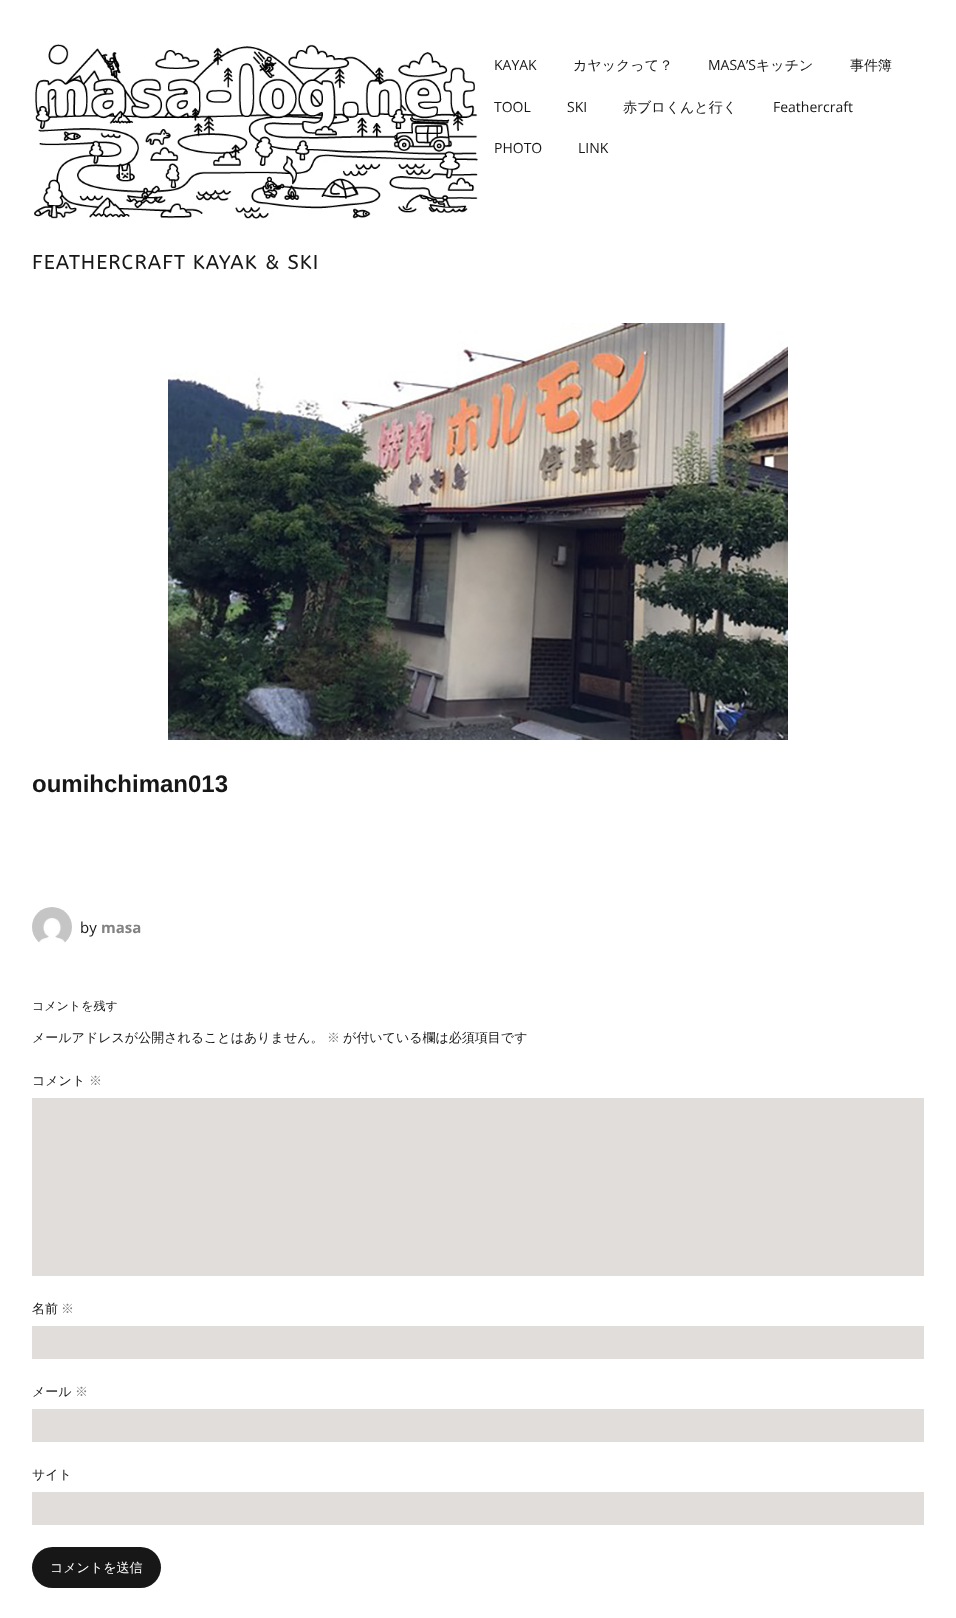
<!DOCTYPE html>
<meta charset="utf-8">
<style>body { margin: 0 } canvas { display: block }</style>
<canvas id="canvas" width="956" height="1618"></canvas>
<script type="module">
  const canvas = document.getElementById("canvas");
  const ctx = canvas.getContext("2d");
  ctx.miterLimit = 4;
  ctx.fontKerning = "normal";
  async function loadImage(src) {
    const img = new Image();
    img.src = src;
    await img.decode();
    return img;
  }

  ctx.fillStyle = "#ffffff";
  ctx.fillRect(0, 0, 956, 1618);
  ctx.font = "14px Open Sans";
  ctx.fillStyle = "#171717";
  ctx.fillText("KAYAK", 494, 70);
  ctx.font = "500 14px WenQuanYi Zen Hei";
  ctx.fillText("カヤックって？", 573, 70);
  ctx.font = "14px Open Sans";
  ctx.fillText("MASA’S", 708, 70);
  ctx.font = "500 14px WenQuanYi Zen Hei";
  ctx.fillText("キッチン", 756, 70);
  ctx.fillText("事件簿", 850, 70);
  ctx.font = "14px Open Sans";
  ctx.fillText("TOOL", 494, 112);
  ctx.fillText("SKI", 567, 112);
  ctx.font = "500 14px WenQuanYi Zen Hei";
  ctx.fillText("赤ブロくんと行く", 623, 112);
  ctx.font = "14px Open Sans";
  ctx.fillText("Feathercraft", 773, 112);
  ctx.fillText("PHOTO", 494, 153);
  ctx.fillText("LINK", 578, 153);
  ctx.drawImage(await loadImage("img1.png"), 34, 44, 444, 175);
  ctx.letterSpacing = "1px";
  ctx.font = "20px ABeeZee";
  ctx.fillText("FEATHERCRAFT KAYAK & SKI", 32, 269);
  ctx.drawImage(await loadImage("img2.png"), 168, 323, 620, 417);
  ctx.letterSpacing = "0px";
  ctx.font = "bold 24px Liberation Sans";
  ctx.fillText("oumihchiman013", 32, 792);
  ctx.drawImage(await loadImage("img3.png"), 32, 907, 40, 36);
  ctx.font = "15px Open Sans";
  ctx.fillText("by", 80, 933);
  ctx.font = "bold 15px Open Sans";
  ctx.fillStyle = "#828282";
  ctx.fillText("masa", 101, 933);
  ctx.font = "500 12px WenQuanYi Zen Hei";
  ctx.fillStyle = "#171717";
  ctx.fillText("コメントを残す", 32, 1010);
  ctx.font = "500 13px WenQuanYi Zen Hei";
  ctx.fillText("メールアドレスが公開されることはありません。", 32, 1042);
  ctx.fillStyle = "#828282";
  ctx.fillText("※", 327, 1042);
  ctx.fillStyle = "#171717";
  ctx.fillText("が付いている欄は必須項目です", 343, 1042);
  ctx.fillText("コメント", 32, 1085);
  ctx.fillStyle = "#828282";
  ctx.fillText("※", 89, 1085);
  ctx.fillStyle = "#e0dddb";
  ctx.fillRect(32, 1098, 892, 178);
  ctx.fillStyle = "#171717";
  ctx.fillText("名前", 32, 1313);
  ctx.fillStyle = "#828282";
  ctx.fillText("※", 61, 1313);
  ctx.fillStyle = "#e0dddb";
  ctx.fillRect(32, 1326, 892, 33);
  ctx.fillStyle = "#171717";
  ctx.fillText("メール", 32, 1396);
  ctx.fillStyle = "#828282";
  ctx.fillText("※", 75, 1396);
  ctx.fillStyle = "#e0dddb";
  ctx.fillRect(32, 1409, 892, 33);
  ctx.fillStyle = "#171717";
  ctx.fillText("サイト", 32, 1479);
  ctx.fillStyle = "#e0dddb";
  ctx.fillRect(32, 1492, 892, 33);
  ctx.fillStyle = "#171717";
  ctx.beginPath();
  ctx.roundRect(32, 1547, 129, 41, 20.5);
  ctx.fill();
  ctx.fillStyle = "#ffffff";
  ctx.fillText("コメントを送信", 50, 1572);
</script>
